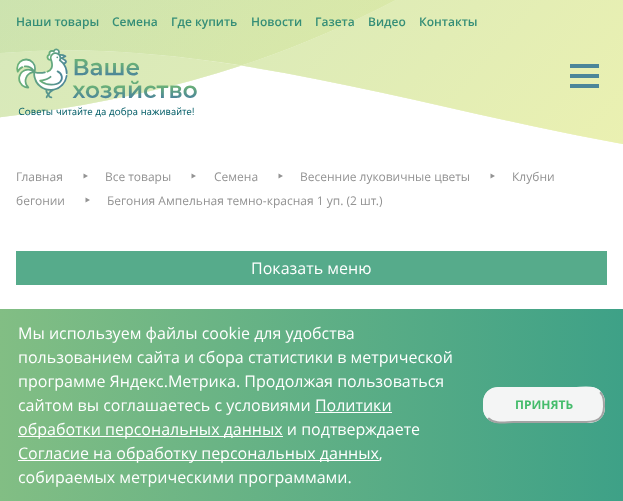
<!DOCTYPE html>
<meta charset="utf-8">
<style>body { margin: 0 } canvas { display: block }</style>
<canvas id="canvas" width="623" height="501"></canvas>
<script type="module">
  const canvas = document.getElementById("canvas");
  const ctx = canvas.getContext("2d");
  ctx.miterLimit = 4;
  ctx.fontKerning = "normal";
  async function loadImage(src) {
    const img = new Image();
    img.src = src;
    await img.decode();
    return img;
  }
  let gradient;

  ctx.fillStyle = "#ffffff";
  ctx.fillRect(0, 0, 623, 501);
  ctx.drawImage(await loadImage("img1.png"), 0, 0, 623, 144);
  ctx.font = "600 12px Open Sans";
  ctx.fillStyle = "#358e77";
  ctx.fillText("Наши товары", 16, 26);
  ctx.fillText("Семена", 112, 26);
  ctx.fillText("Где купить", 171, 26);
  ctx.fillText("Новости", 251, 26);
  ctx.fillText("Газета", 315, 26);
  ctx.fillText("Видео", 368, 26);
  ctx.fillText("Контакты", 419, 26);
  ctx.drawImage(await loadImage("img2.png"), 16, 48, 181, 70);
  ctx.fillStyle = "#4c8699";
  ctx.fillRect(570, 64, 29, 4);
  ctx.fillRect(570, 74, 29, 4);
  ctx.fillRect(570, 84, 29, 4);
  ctx.font = "12px Open Sans";
  ctx.fillStyle = "#939393";
  ctx.fillText("Клубни", 512, 181);
  ctx.fillText("бегонии", 16, 205);
  ctx.beginPath();
  ctx.moveTo(90, 200);
  ctx.lineTo(85.5, 202.5);
  ctx.lineTo(85.5, 197.5);
  ctx.closePath();
  ctx.fill();
  ctx.fillText("Главная", 16, 181);
  ctx.beginPath();
  ctx.moveTo(88, 176);
  ctx.lineTo(83.5, 178.5);
  ctx.lineTo(83.5, 173.5);
  ctx.closePath();
  ctx.fill();
  ctx.fillText("Все товары", 105, 181);
  ctx.beginPath();
  ctx.moveTo(196, 176);
  ctx.lineTo(191.5, 178.5);
  ctx.lineTo(191.5, 173.5);
  ctx.closePath();
  ctx.fill();
  ctx.fillText("Семена", 214, 181);
  ctx.beginPath();
  ctx.moveTo(283, 176);
  ctx.lineTo(278.5, 178.5);
  ctx.lineTo(278.5, 173.5);
  ctx.closePath();
  ctx.fill();
  ctx.fillText("Весенние луковичные цветы", 300, 181);
  ctx.beginPath();
  ctx.moveTo(495, 176);
  ctx.lineTo(490.5, 178.5);
  ctx.lineTo(490.5, 173.5);
  ctx.closePath();
  ctx.fill();
  ctx.fillText("Бегония Ампельная темно-красная 1 уп. (2 шт.)", 107, 205);
  ctx.fillStyle = "#56ab8b";
  ctx.fillRect(16, 251, 591, 34);
  ctx.font = "16px Open Sans";
  ctx.fillStyle = "#ffffff";
  ctx.fillText("Показать меню", 251, 274);
  gradient = ctx.createLinearGradient(0, 405, 623, 405);
  gradient.addColorStop(0, "#82be84");
  gradient.addColorStop(1, "#3ea187");
  ctx.fillStyle = gradient;
  ctx.fillRect(0, 309, 623, 192);
  ctx.fillStyle = "#ffffff";
  ctx.fillText("Мы используем файлы cookie для удобства", 18, 339);
  ctx.fillText("пользованием сайта и сбора статистики в метрической", 18, 363);
  ctx.fillText("программе Яндекс.Метрика. Продолжая пользоваться", 18, 387);
  ctx.fillText("сайтом вы соглашаетесь с условиями Политики", 18, 411);
  ctx.fillRect(18, 436, 265, 1);
  ctx.fillText("обработки персональных данных и подтверждаете", 18, 435);
  ctx.fillRect(315, 412, 77, 1);
  ctx.fillRect(18, 460, 361, 1);
  ctx.fillText("Согласие на обработку персональных данных,", 18, 459);
  ctx.fillText("собираемых метрическими программами.", 18, 483);
  ctx.fillStyle = "#f4f5f5";
  ctx.beginPath();
  ctx.roundRect(483, 387, 122, 36, 15);
  ctx.fill();
  ctx.beginPath();
  ctx.moveTo(600, 392);
  ctx.bezierCurveTo(604, 396, 604, 401, 604, 406.5);
  ctx.bezierCurveTo(604, 424.5, 588, 422, 574.5, 422);
  ctx.lineTo(513.5, 422);
  ctx.bezierCurveTo(505.5, 422, 494.5, 424.5, 488, 418);
  ctx.strokeStyle = "#a3a3a3";
  ctx.lineWidth = 2;
  ctx.stroke();
  ctx.beginPath();
  ctx.moveTo(488, 418);
  ctx.bezierCurveTo(484, 414, 484, 409, 484, 403.5);
  ctx.bezierCurveTo(484, 385.5, 500, 388, 513.5, 388);
  ctx.lineTo(574.5, 388);
  ctx.bezierCurveTo(582.5, 388, 593.5, 385.5, 600, 392);
  ctx.strokeStyle = "#f4f5f5";
  ctx.stroke();
  ctx.font = "bold 12px Open Sans";
  ctx.fillStyle = "#45bc6c";
  ctx.fillText("ПРИНЯТЬ", 515, 409);
</script>
